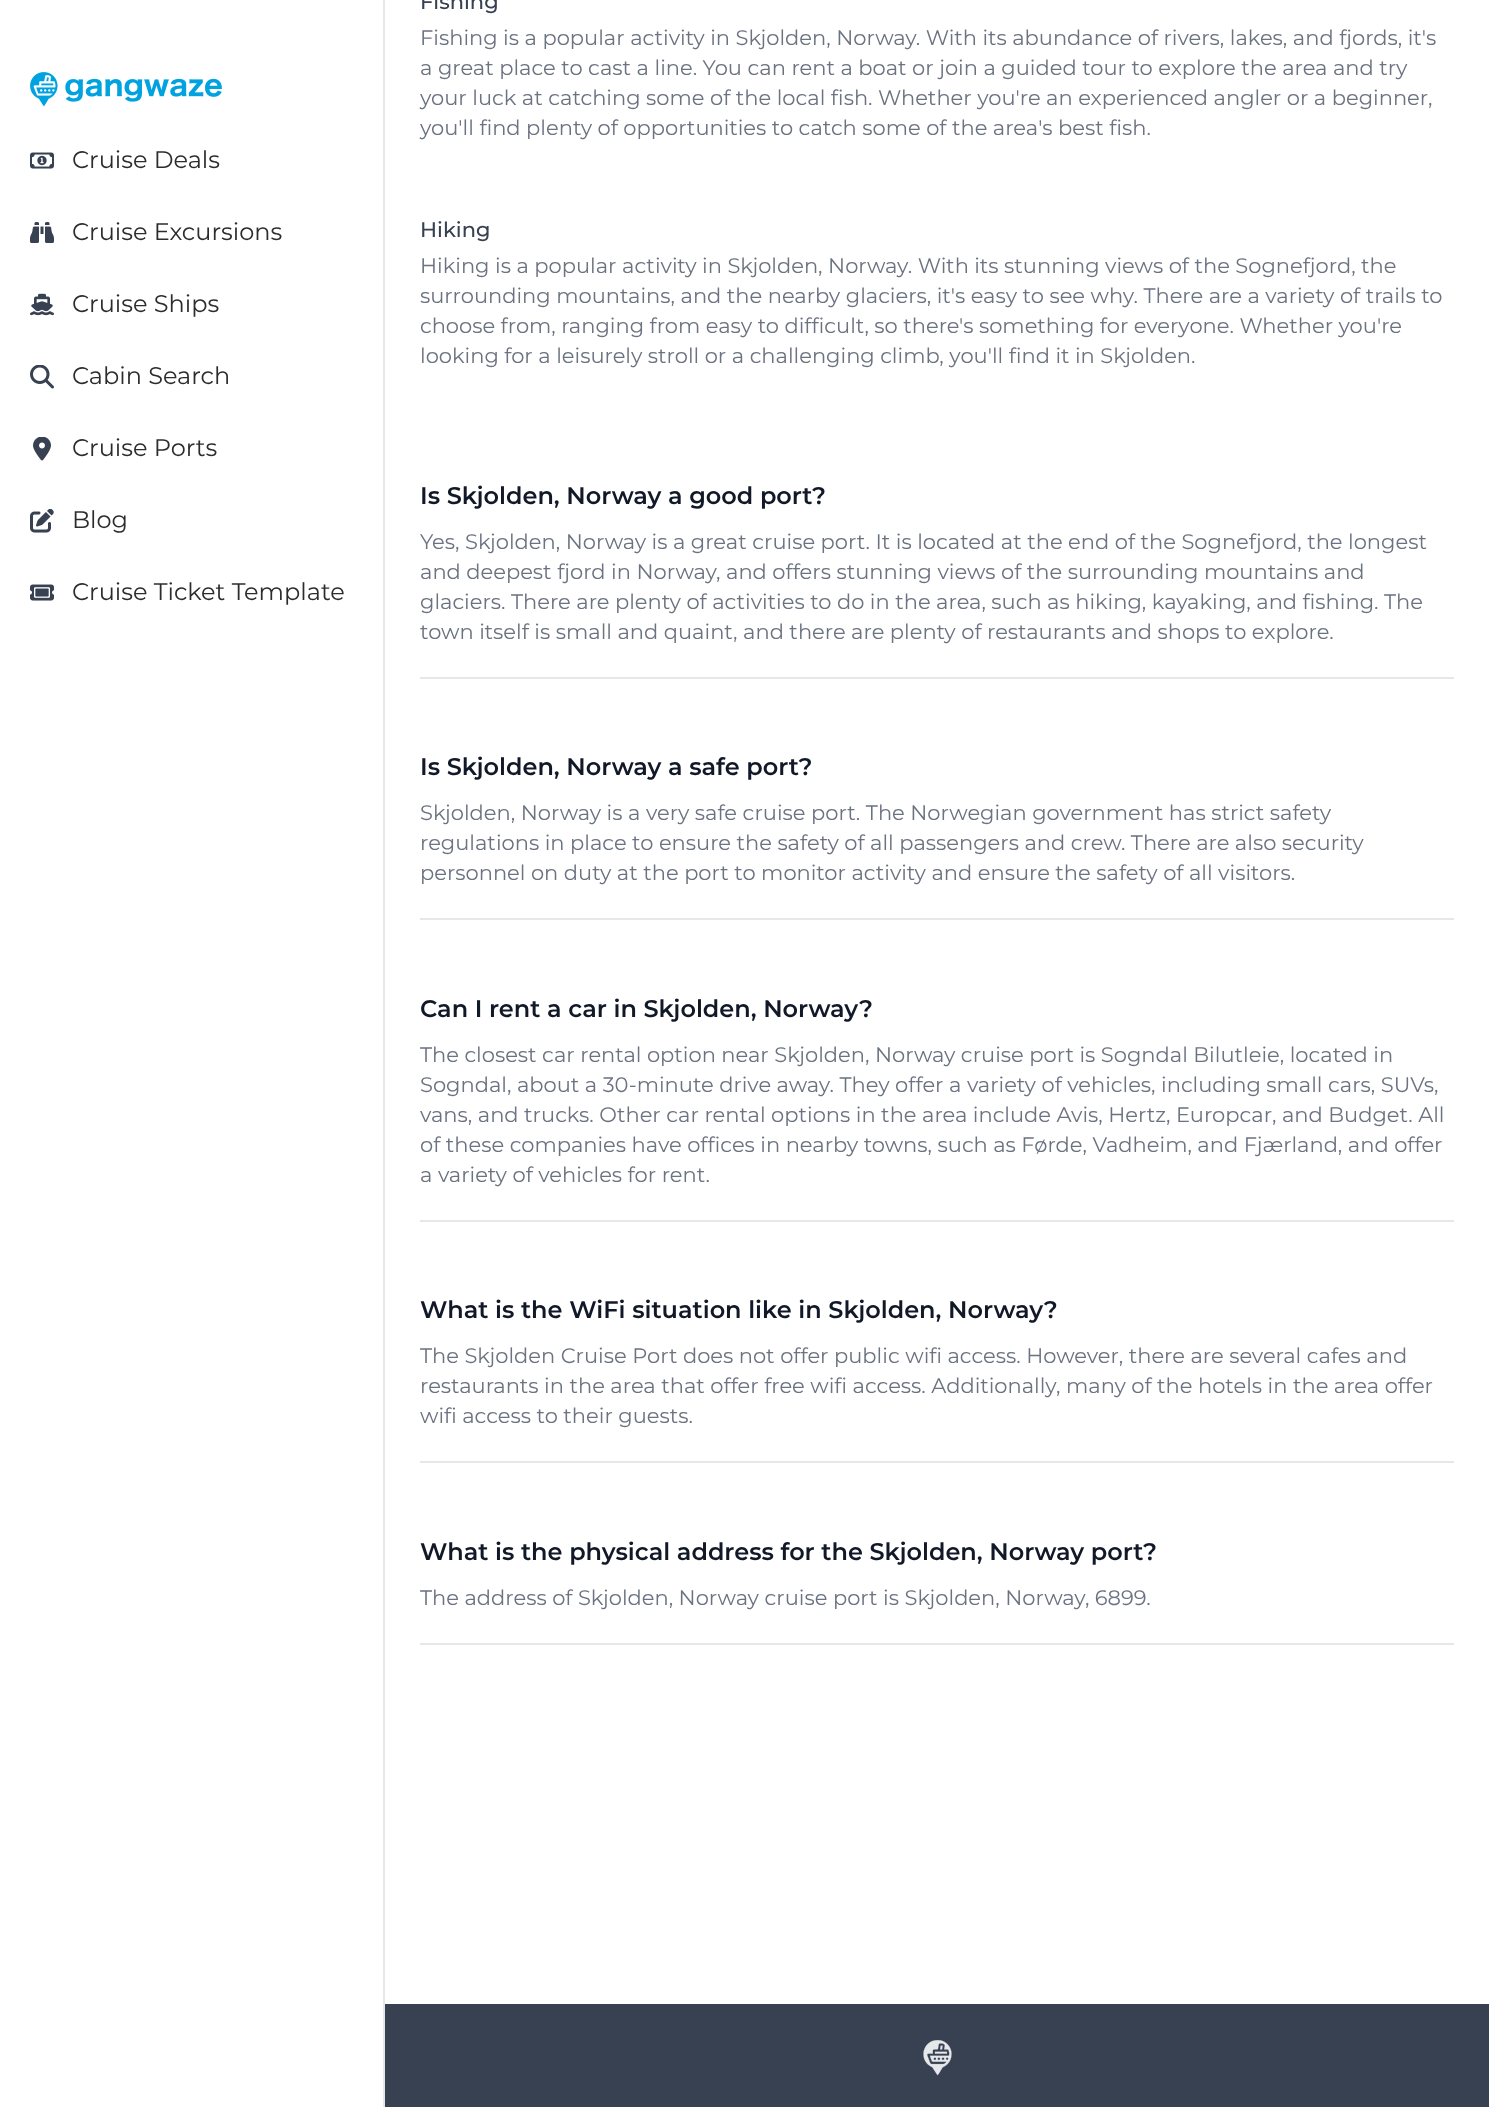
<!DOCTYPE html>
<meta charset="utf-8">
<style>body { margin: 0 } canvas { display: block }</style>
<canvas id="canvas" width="1489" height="2107"></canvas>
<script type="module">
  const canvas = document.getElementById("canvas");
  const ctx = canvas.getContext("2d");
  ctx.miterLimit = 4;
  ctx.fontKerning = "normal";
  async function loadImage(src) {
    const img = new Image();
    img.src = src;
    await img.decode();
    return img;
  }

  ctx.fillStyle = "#ffffff";
  ctx.fillRect(0, 0, 1489, 2107);
  ctx.fillStyle = "#e5e7eb";
  ctx.fillRect(383, 0, 2, 2107);
  ctx.drawImage(await loadImage("img1.png"), 30, 72, 192, 35);
  ctx.drawImage(await loadImage("img2.png"), 30, 152, 24, 17);
  ctx.font = "24px Montserrat";
  ctx.fillStyle = "#2c2c2c";
  ctx.fillText("Cruise Deals", 72, 168);
  ctx.drawImage(await loadImage("img3.png"), 30, 222, 24, 21);
  ctx.fillText("Cruise Excursions", 72, 240);
  ctx.drawImage(await loadImage("img4.png"), 30, 293, 24, 23);
  ctx.fillText("Cruise Ships", 72, 312);
  ctx.drawImage(await loadImage("img5.png"), 30, 365, 24, 24);
  ctx.fillText("Cabin Search", 72, 384);
  ctx.drawImage(await loadImage("img6.png"), 33, 437, 18, 24);
  ctx.fillText("Cruise Ports", 72, 456);
  ctx.drawImage(await loadImage("img7.png"), 30, 509, 24, 24);
  ctx.fillText("Blog", 72, 528);
  ctx.drawImage(await loadImage("img8.png"), 30, 584, 24, 17);
  ctx.fillText("Cruise Ticket Template", 72, 600);
  ctx.font = "500 21px Montserrat";
  ctx.fillStyle = "#374151";
  ctx.fillText("Fishing", 420, 9);
  ctx.font = "21px Montserrat";
  ctx.fillStyle = "#6b7280";
  ctx.fillText("Fishing is a popular activity in Skjolden, Norway. With its abundance of rivers, lakes, and fjords, it's", 420, 45);
  ctx.fillText("a great place to cast a line. You can rent a boat or join a guided tour to explore the area and try", 420, 75);
  ctx.fillText("your luck at catching some of the local fish. Whether you're an experienced angler or a beginner,", 420, 105);
  ctx.fillText("you'll find plenty of opportunities to catch some of the area's best fish.", 420, 135);
  ctx.font = "500 21px Montserrat";
  ctx.fillStyle = "#374151";
  ctx.fillText("Hiking", 420, 237);
  ctx.font = "21px Montserrat";
  ctx.fillStyle = "#6b7280";
  ctx.fillText("Hiking is a popular activity in Skjolden, Norway. With its stunning views of the Sognefjord, the", 420, 273);
  ctx.fillText("surrounding mountains, and the nearby glaciers, it's easy to see why. There are a variety of trails to", 420, 303);
  ctx.fillText("choose from, ranging from easy to difficult, so there's something for everyone. Whether you're", 420, 333);
  ctx.fillText("looking for a leisurely stroll or a challenging climb, you'll find it in Skjolden.", 420, 363);
  ctx.fillStyle = "#e5e7eb";
  ctx.fillRect(420, 677, 1034, 2);
  ctx.font = "600 24px Montserrat";
  ctx.fillStyle = "#111827";
  ctx.fillText("Is Skjolden, Norway a good port?", 420, 504);
  ctx.font = "21px Montserrat";
  ctx.fillStyle = "#6b7280";
  ctx.fillText("Yes, Skjolden, Norway is a great cruise port. It is located at the end of the Sognefjord, the longest", 420, 549);
  ctx.fillText("and deepest fjord in Norway, and offers stunning views of the surrounding mountains and", 420, 579);
  ctx.fillText("glaciers. There are plenty of activities to do in the area, such as hiking, kayaking, and fishing. The", 420, 609);
  ctx.fillText("town itself is small and quaint, and there are plenty of restaurants and shops to explore.", 420, 639);
  ctx.fillStyle = "#e5e7eb";
  ctx.fillRect(420, 918, 1034, 2);
  ctx.font = "600 24px Montserrat";
  ctx.fillStyle = "#111827";
  ctx.fillText("Is Skjolden, Norway a safe port?", 420, 775);
  ctx.font = "21px Montserrat";
  ctx.fillStyle = "#6b7280";
  ctx.fillText("Skjolden, Norway is a very safe cruise port. The Norwegian government has strict safety", 420, 820);
  ctx.fillText("regulations in place to ensure the safety of all passengers and crew. There are also security", 420, 850);
  ctx.fillText("personnel on duty at the port to monitor activity and ensure the safety of all visitors.", 420, 880);
  ctx.fillStyle = "#e5e7eb";
  ctx.fillRect(420, 1220, 1034, 2);
  ctx.font = "600 24px Montserrat";
  ctx.fillStyle = "#111827";
  ctx.fillText("Can I rent a car in Skjolden, Norway?", 420, 1017);
  ctx.font = "21px Montserrat";
  ctx.fillStyle = "#6b7280";
  ctx.fillText("The closest car rental option near Skjolden, Norway cruise port is Sogndal Bilutleie, located in", 420, 1062);
  ctx.fillText("Sogndal, about a 30-minute drive away. They offer a variety of vehicles, including small cars, SUVs,", 420, 1092);
  ctx.fillText("vans, and trucks. Other car rental options in the area include Avis, Hertz, Europcar, and Budget. All", 420, 1122);
  ctx.fillText("of these companies have offices in nearby towns, such as Førde, Vadheim, and Fjærland, and offer", 420, 1152);
  ctx.fillText("a variety of vehicles for rent.", 420, 1182);
  ctx.fillStyle = "#e5e7eb";
  ctx.fillRect(420, 1461, 1034, 2);
  ctx.font = "600 24px Montserrat";
  ctx.fillStyle = "#111827";
  ctx.fillText("What is the WiFi situation like in Skjolden, Norway?", 420, 1318);
  ctx.font = "21px Montserrat";
  ctx.fillStyle = "#6b7280";
  ctx.fillText("The Skjolden Cruise Port does not offer public wifi access. However, there are several cafes and", 420, 1363);
  ctx.fillText("restaurants in the area that offer free wifi access. Additionally, many of the hotels in the area offer", 420, 1393);
  ctx.fillText("wifi access to their guests.", 420, 1423);
  ctx.fillStyle = "#e5e7eb";
  ctx.fillRect(420, 1643, 1034, 2);
  ctx.font = "600 24px Montserrat";
  ctx.fillStyle = "#111827";
  ctx.fillText("What is the physical address for the Skjolden, Norway port?", 420, 1560);
  ctx.font = "21px Montserrat";
  ctx.fillStyle = "#6b7280";
  ctx.fillText("The address of Skjolden, Norway cruise port is Skjolden, Norway, 6899.", 420, 1605);
  ctx.fillStyle = "#374151";
  ctx.fillRect(385, 2004, 1104, 103);
  ctx.drawImage(await loadImage("img9.png"), 923, 2040, 29, 36);
</script>
